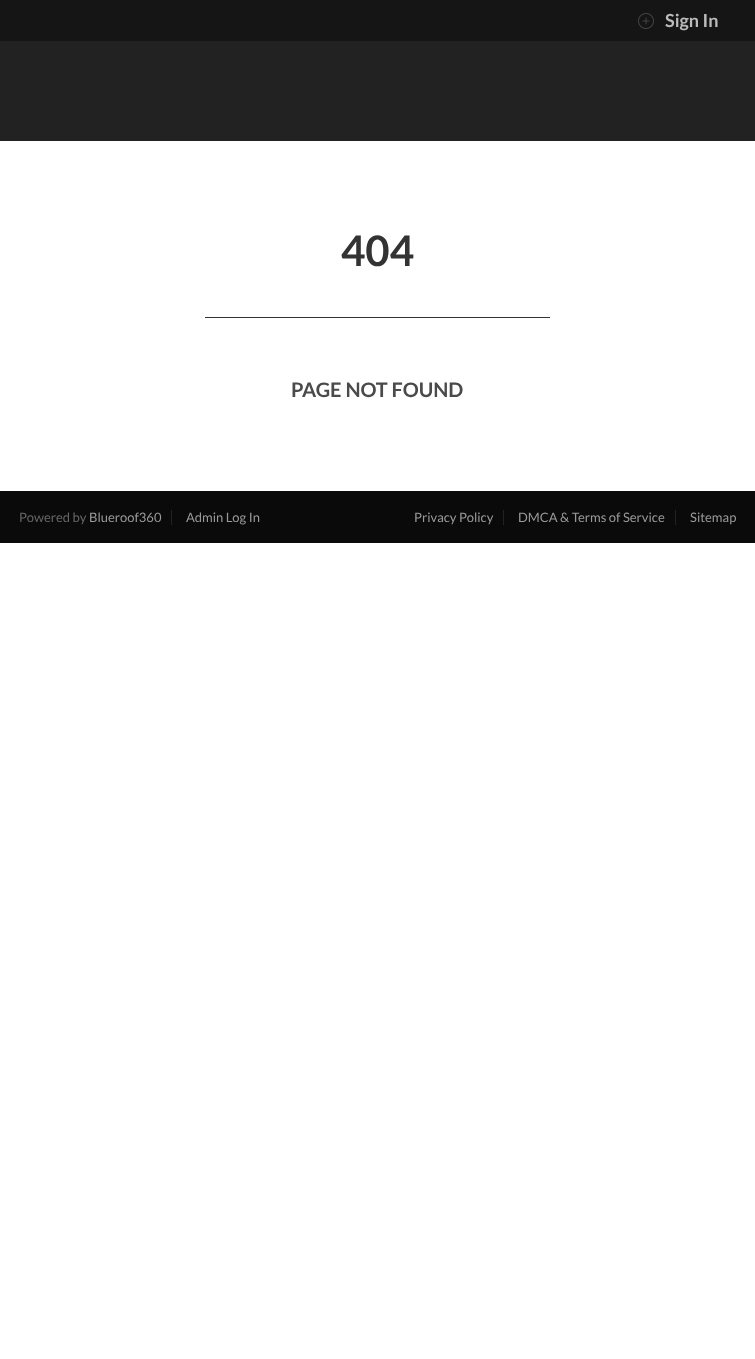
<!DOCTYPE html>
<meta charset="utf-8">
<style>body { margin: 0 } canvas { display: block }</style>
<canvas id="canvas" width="755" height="1359"></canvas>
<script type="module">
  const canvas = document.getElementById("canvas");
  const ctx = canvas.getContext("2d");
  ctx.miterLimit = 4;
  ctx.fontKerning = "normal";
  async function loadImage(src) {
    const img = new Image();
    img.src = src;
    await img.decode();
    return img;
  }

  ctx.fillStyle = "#ffffff";
  ctx.fillRect(0, 0, 755, 1359);
  ctx.fillStyle = "#151515";
  ctx.fillRect(0, 0, 755, 41);
  ctx.drawImage(await loadImage("img1.png"), 638, 13, 16, 16);
  ctx.font = "bold 18px Lato";
  ctx.fillStyle = "#bbbbbb";
  ctx.fillText("Sign In", 665, 27);
  ctx.fillStyle = "#222222";
  ctx.fillRect(0, 41, 755, 100);
  ctx.font = "bold 42px Lato";
  ctx.fillStyle = "#333333";
  ctx.fillText("404", 341, 266);
  ctx.fillRect(205, 317, 345, 1);
  ctx.font = "bold 20px Lato";
  ctx.fillStyle = "#4a4a4a";
  ctx.fillText("PAGE NOT FOUND", 291, 397);
  ctx.fillStyle = "#0a0a0a";
  ctx.fillRect(0, 491, 755, 52);
  ctx.font = "13px Lato";
  ctx.fillStyle = "#666666";
  ctx.fillText("Powered by", 19, 522);
  ctx.fillStyle = "#999999";
  ctx.fillText("Blueroof360", 89, 522);
  ctx.fillStyle = "#222222";
  ctx.fillRect(171, 510, 1, 15);
  ctx.fillStyle = "#999999";
  ctx.fillText("Admin Log In", 186, 522);
  ctx.fillText("Privacy Policy", 414, 522);
  ctx.fillStyle = "#222222";
  ctx.fillRect(503, 510, 1, 15);
  ctx.fillStyle = "#999999";
  ctx.fillText("DMCA & Terms of Service", 518, 522);
  ctx.fillStyle = "#222222";
  ctx.fillRect(675, 510, 1, 15);
  ctx.fillStyle = "#999999";
  ctx.fillText("Sitemap", 690, 522);
</script>
